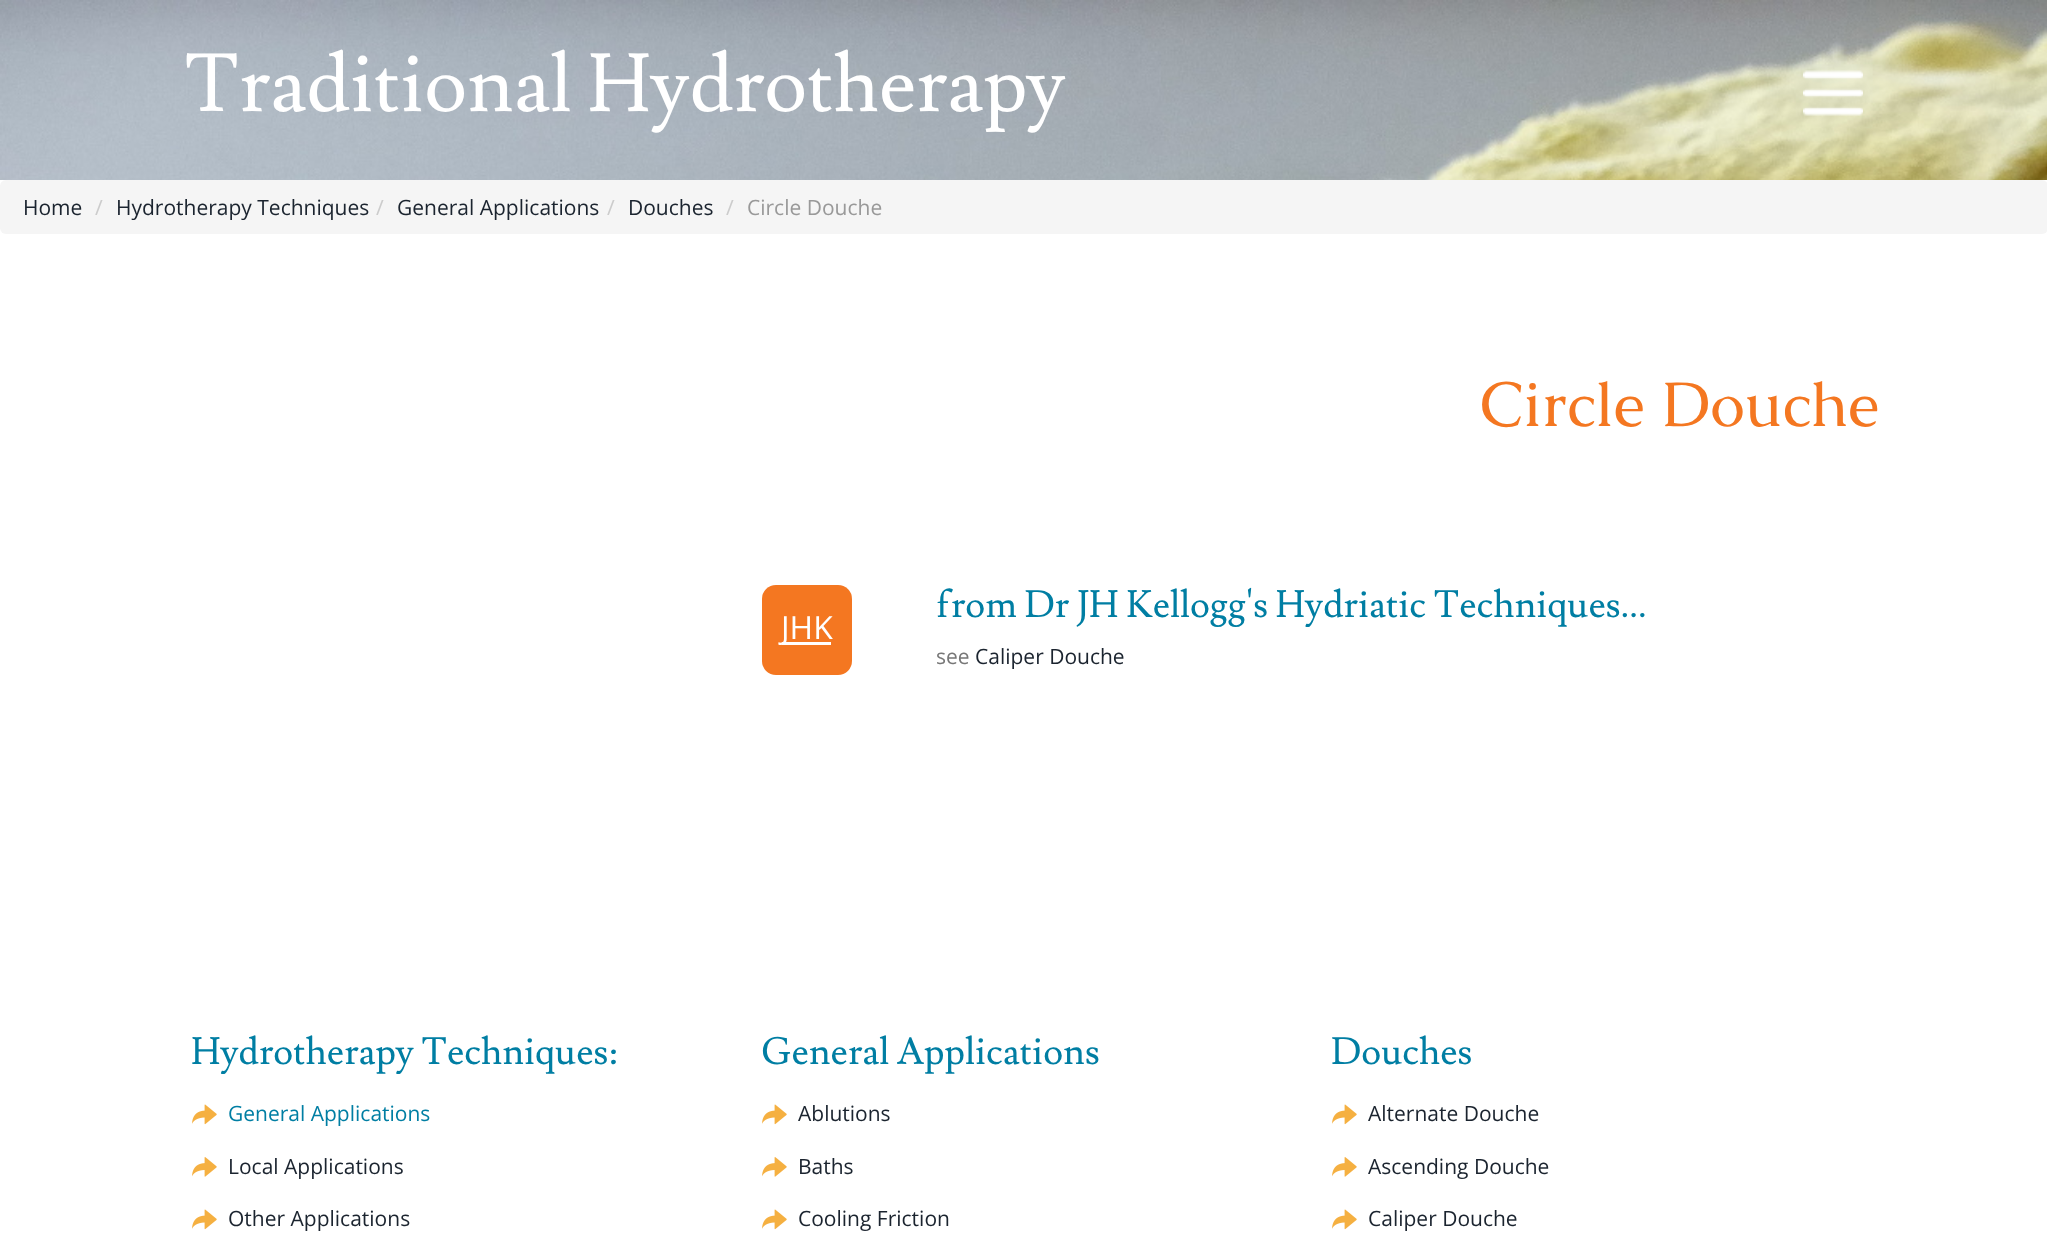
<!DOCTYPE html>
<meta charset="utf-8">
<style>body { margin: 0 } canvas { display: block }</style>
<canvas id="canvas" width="2047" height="1260"></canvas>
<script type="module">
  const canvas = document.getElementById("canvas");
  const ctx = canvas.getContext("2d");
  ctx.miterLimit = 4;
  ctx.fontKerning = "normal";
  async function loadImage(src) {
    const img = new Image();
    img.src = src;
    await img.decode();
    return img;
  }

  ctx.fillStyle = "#ffffff";
  ctx.fillRect(0, 0, 2047, 1260);
  ctx.drawImage(await loadImage("img1.png"), 0, 0, 2047, 180);
  ctx.font = "81px Lusitana";
  ctx.fillText("Traditional Hydrotherapy", 184, 111);
  ctx.drawImage(await loadImage("img2.png"), 1803, 70, 60, 46);
  ctx.fillStyle = "#f5f5f5";
  ctx.beginPath();
  ctx.roundRect(0, 180, 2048, 54, 6);
  ctx.fill();
  ctx.font = "21px Open Sans";
  ctx.fillStyle = "#1b242f";
  ctx.fillText("Home", 23, 215);
  ctx.fillStyle = "#cccccc";
  ctx.fillText("/", 95, 215);
  ctx.fillStyle = "#1b242f";
  ctx.fillText("Hydrotherapy Techniques", 116, 215);
  ctx.fillStyle = "#cccccc";
  ctx.fillText("/", 376, 215);
  ctx.fillStyle = "#1b242f";
  ctx.fillText("General Applications", 397, 215);
  ctx.fillStyle = "#cccccc";
  ctx.fillText("/", 607, 215);
  ctx.fillStyle = "#1b242f";
  ctx.fillText("Douches", 628, 215);
  ctx.fillStyle = "#cccccc";
  ctx.fillText("/", 726, 215);
  ctx.fillStyle = "#999999";
  ctx.fillText("Circle Douche", 747, 215);
  ctx.font = "63px Caudex";
  ctx.fillStyle = "#f47721";
  ctx.fillText("Circle Douche", 1480, 426);
  ctx.beginPath();
  ctx.roundRect(762, 585, 90, 90, 14);
  ctx.fill();
  ctx.fillStyle = "#ffffff";
  ctx.fillRect(782, 642, 49, 3);
  ctx.font = "32px Open Sans";
  ctx.fillText("JHK", 781, 639);
  ctx.font = "37.75px Lusitana";
  ctx.fillStyle = "#007ea3";
  ctx.fillText("from Dr JH Kellogg's Hydriatic Techniques...", 936, 617);
  ctx.font = "21px Open Sans";
  ctx.fillStyle = "#777777";
  ctx.fillText("see", 936, 664);
  ctx.fillStyle = "#1b242f";
  ctx.fillText("Caliper Douche", 975, 664);
  ctx.font = "37.75px Lusitana";
  ctx.fillStyle = "#007ea3";
  ctx.fillText("Hydrotherapy Techniques:", 191, 1064);
  ctx.drawImage(await loadImage("img3.png"), 192, 1104, 25, 21);
  ctx.font = "21px Open Sans";
  ctx.fillText("General Applications", 228, 1121);
  ctx.drawImage(await loadImage("img4.png"), 192, 1157, 25, 20);
  ctx.fillStyle = "#1b242f";
  ctx.fillText("Local Applications", 228, 1174);
  ctx.drawImage(await loadImage("img3.png"), 192, 1209, 25, 21);
  ctx.fillText("Other Applications", 228, 1226);
  ctx.font = "37.75px Lusitana";
  ctx.fillStyle = "#007ea3";
  ctx.fillText("General Applications", 761, 1064);
  ctx.drawImage(await loadImage("img3.png"), 762, 1104, 25, 21);
  ctx.font = "21px Open Sans";
  ctx.fillStyle = "#1b242f";
  ctx.fillText("Ablutions", 798, 1121);
  ctx.drawImage(await loadImage("img4.png"), 762, 1157, 25, 20);
  ctx.fillText("Baths", 798, 1174);
  ctx.drawImage(await loadImage("img3.png"), 762, 1209, 25, 21);
  ctx.fillText("Cooling Friction", 798, 1226);
  ctx.font = "37.75px Lusitana";
  ctx.fillStyle = "#007ea3";
  ctx.fillText("Douches", 1331, 1064);
  ctx.drawImage(await loadImage("img3.png"), 1332, 1104, 25, 21);
  ctx.font = "21px Open Sans";
  ctx.fillStyle = "#1b242f";
  ctx.fillText("Alternate Douche", 1368, 1121);
  ctx.drawImage(await loadImage("img4.png"), 1332, 1157, 25, 20);
  ctx.fillText("Ascending Douche", 1368, 1174);
  ctx.drawImage(await loadImage("img3.png"), 1332, 1209, 25, 21);
  ctx.fillText("Caliper Douche", 1368, 1226);
</script>
